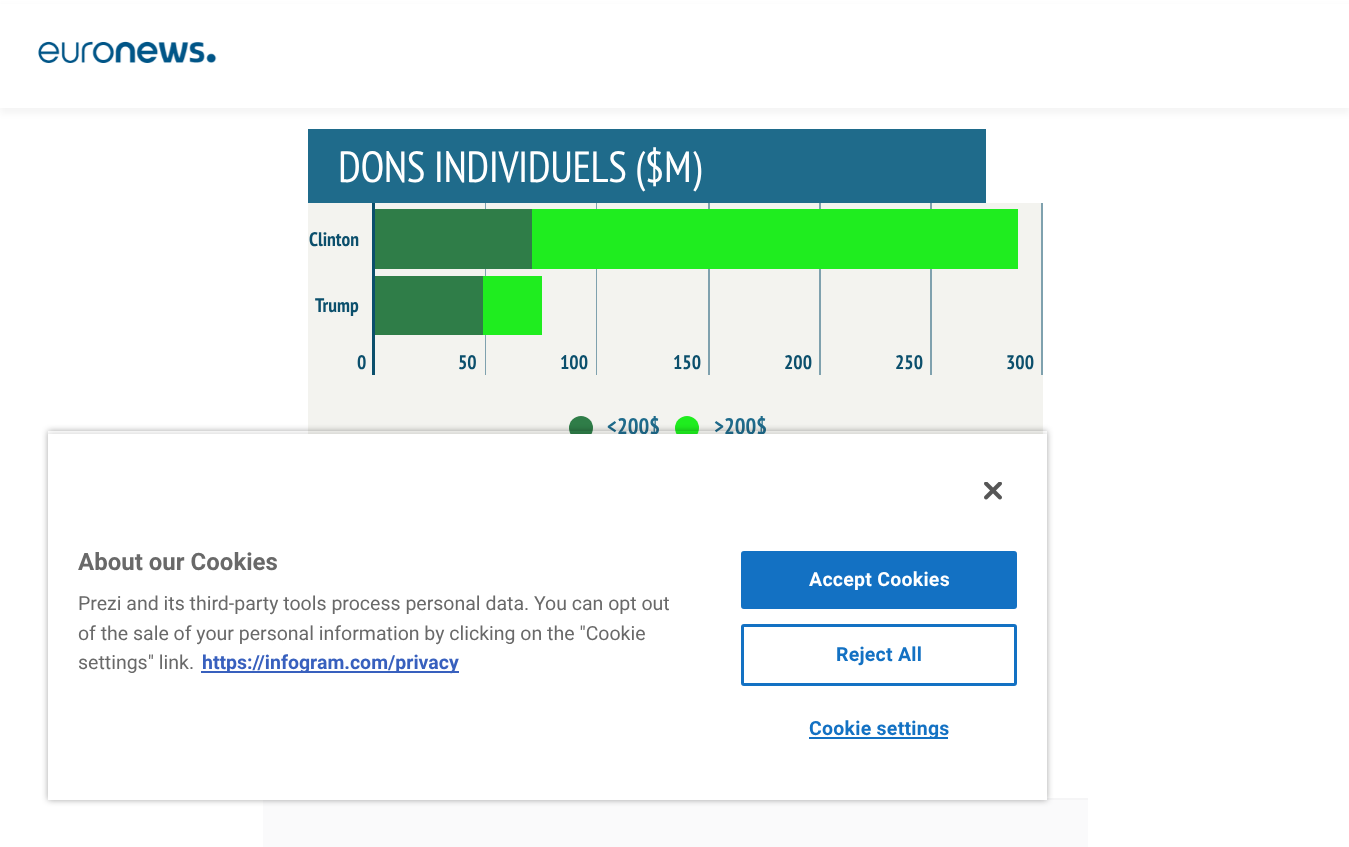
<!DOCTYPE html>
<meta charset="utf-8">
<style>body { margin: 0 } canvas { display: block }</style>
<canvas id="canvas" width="1349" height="847"></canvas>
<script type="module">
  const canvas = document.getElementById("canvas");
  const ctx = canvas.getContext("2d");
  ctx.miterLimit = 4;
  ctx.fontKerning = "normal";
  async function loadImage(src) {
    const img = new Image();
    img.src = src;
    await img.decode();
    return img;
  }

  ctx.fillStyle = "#ffffff";
  ctx.fillRect(0, 0, 1349, 847);
  ctx.fillStyle = "rgba(0, 0, 0, 0.04)";
  ctx.filter = "blur(3px)";
  ctx.beginPath();
  ctx.rect(0, 6, 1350, 108);
  ctx.fill();
  ctx.filter = "none";
  ctx.fillStyle = "#ffffff";
  ctx.fillRect(0, 4, 1349, 104);
  ctx.drawImage(await loadImage("img1.png"), 38, 41, 179, 22);
  ctx.fillStyle = "#1f6b8b";
  ctx.fillRect(308, 129, 678, 74);
  ctx.letterSpacing = "-0.45px";
  ctx.font = "43.5px PT Sans Narrow";
  ctx.fillStyle = "#ffffff";
  ctx.fillText("DONS INDIVIDUELS ($M)", 338, 182);
  ctx.fillStyle = "#f3f3ef";
  ctx.fillRect(308, 203, 735, 231);
  ctx.letterSpacing = "0px";
  ctx.font = "bold 19.5px PT Sans Narrow";
  ctx.fillStyle = "#0b4f6c";
  ctx.fillText("Clinton", 309, 246);
  ctx.fillStyle = "#7fa1ae";
  ctx.fillRect(485, 203, 1, 172);
  ctx.fillStyle = "#2f7d48";
  ctx.fillRect(375, 209, 157, 60);
  ctx.fillStyle = "#7fa1ae";
  ctx.fillRect(596, 203, 1, 172);
  ctx.fillRect(708, 203, 2, 172);
  ctx.fillRect(819, 203, 2, 172);
  ctx.fillRect(930, 203, 2, 172);
  ctx.fillStyle = "#1fed1f";
  ctx.fillRect(532, 209, 486, 60);
  ctx.fillStyle = "#0b4f6c";
  ctx.fillText("Trump", 315, 312);
  ctx.fillRect(372, 203, 3, 172);
  ctx.fillStyle = "#2f7d48";
  ctx.fillRect(375, 276, 108, 59);
  ctx.fillStyle = "#0b4f6c";
  ctx.fillText("0", 357, 369);
  ctx.fillText("50", 458, 369);
  ctx.fillStyle = "#1fed1f";
  ctx.fillRect(483, 276, 59, 59);
  ctx.fillStyle = "#0b4f6c";
  ctx.fillText("100", 560, 369);
  ctx.fillText("150", 673, 369);
  ctx.fillText("200", 784, 369);
  ctx.fillText("250", 895, 369);
  ctx.fillText("300", 1006, 369);
  ctx.fillStyle = "#7fa1ae";
  ctx.fillRect(1041, 203, 2, 172);
  ctx.fillStyle = "#2f7d48";
  ctx.beginPath();
  ctx.arc(581, 428, 12, 0, Math.PI * 2);
  ctx.fill();
  ctx.font = "bold 22.5px PT Sans Narrow";
  ctx.fillStyle = "#1f6b8b";
  ctx.fillText("<200$", 607, 434);
  ctx.fillStyle = "#1fed1f";
  ctx.beginPath();
  ctx.arc(687, 428, 12, 0, Math.PI * 2);
  ctx.fill();
  ctx.fillStyle = "#1f6b8b";
  ctx.fillText(">200$", 714, 434);
  ctx.fillStyle = "#fafafb";
  ctx.fillRect(263, 800, 825, 47);
  ctx.fillStyle = "#f5f5f6";
  ctx.fillRect(1047, 798, 41, 2);
  ctx.save();
  ctx.beginPath();
  ctx.moveTo(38, 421);
  ctx.lineTo(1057, 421);
  ctx.lineTo(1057, 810);
  ctx.lineTo(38, 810);
  ctx.closePath();
  ctx.moveTo(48, 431);
  ctx.lineTo(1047, 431);
  ctx.lineTo(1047, 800);
  ctx.lineTo(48, 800);
  ctx.closePath();
  ctx.clip("evenodd");
  ctx.fillStyle = "rgba(0, 0, 0, 0.35)";
  ctx.filter = "blur(3px)";
  ctx.beginPath();
  ctx.rect(48, 431, 999, 369);
  ctx.fill();
  ctx.filter = "none";
  ctx.restore();
  ctx.save();
  ctx.beginPath();
  ctx.rect(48, 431, 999, 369);
  ctx.clip();
  ctx.fillStyle = "rgba(0, 0, 0, 0.2)";
  ctx.filter = "blur(3px)";
  ctx.beginPath();
  ctx.rect(48, 434, 999, 366);
  ctx.fill();
  ctx.filter = "none";
  ctx.restore();
  ctx.fillStyle = "#ffffff";
  ctx.fillRect(48, 434, 999, 366);
  ctx.drawImage(await loadImage("img2.png"), 984, 482, 18, 18);
  ctx.font = "bold 24px Roboto";
  ctx.fillStyle = "#696969";
  ctx.fillText("About our Cookies", 78, 570);
  ctx.font = "19.5px Roboto";
  ctx.fillText("Prezi and its third-party tools process personal data. You can opt out", 78, 610);
  ctx.fillText("of the sale of your personal information by clicking on the \"Cookie", 78, 640);
  ctx.fillText("settings\" link.", 78, 669);
  ctx.fillStyle = "#3860be";
  ctx.fillRect(201, 671, 258, 2);
  ctx.font = "bold 19.5px Roboto";
  ctx.fillText("https://infogram.com/privacy", 202, 669);
  ctx.fillStyle = "#1371c3";
  ctx.beginPath();
  ctx.roundRect(742, 552, 274, 56, 2);
  ctx.fill();
  ctx.strokeStyle = "#1371c3";
  ctx.lineWidth = 2;
  ctx.stroke();
  ctx.letterSpacing = "0.25px";
  ctx.fillStyle = "#ffffff";
  ctx.fillText("Accept Cookies", 809, 586);
  ctx.beginPath();
  ctx.roundRect(742.5, 625.5, 273, 59, 1.5);
  ctx.lineWidth = 3;
  ctx.stroke();
  ctx.fillStyle = "#1371c3";
  ctx.fillText("Reject All", 836, 661);
  ctx.fillRect(809, 737, 139, 2);
  ctx.fillText("Cookie settings", 809, 735);
</script>
